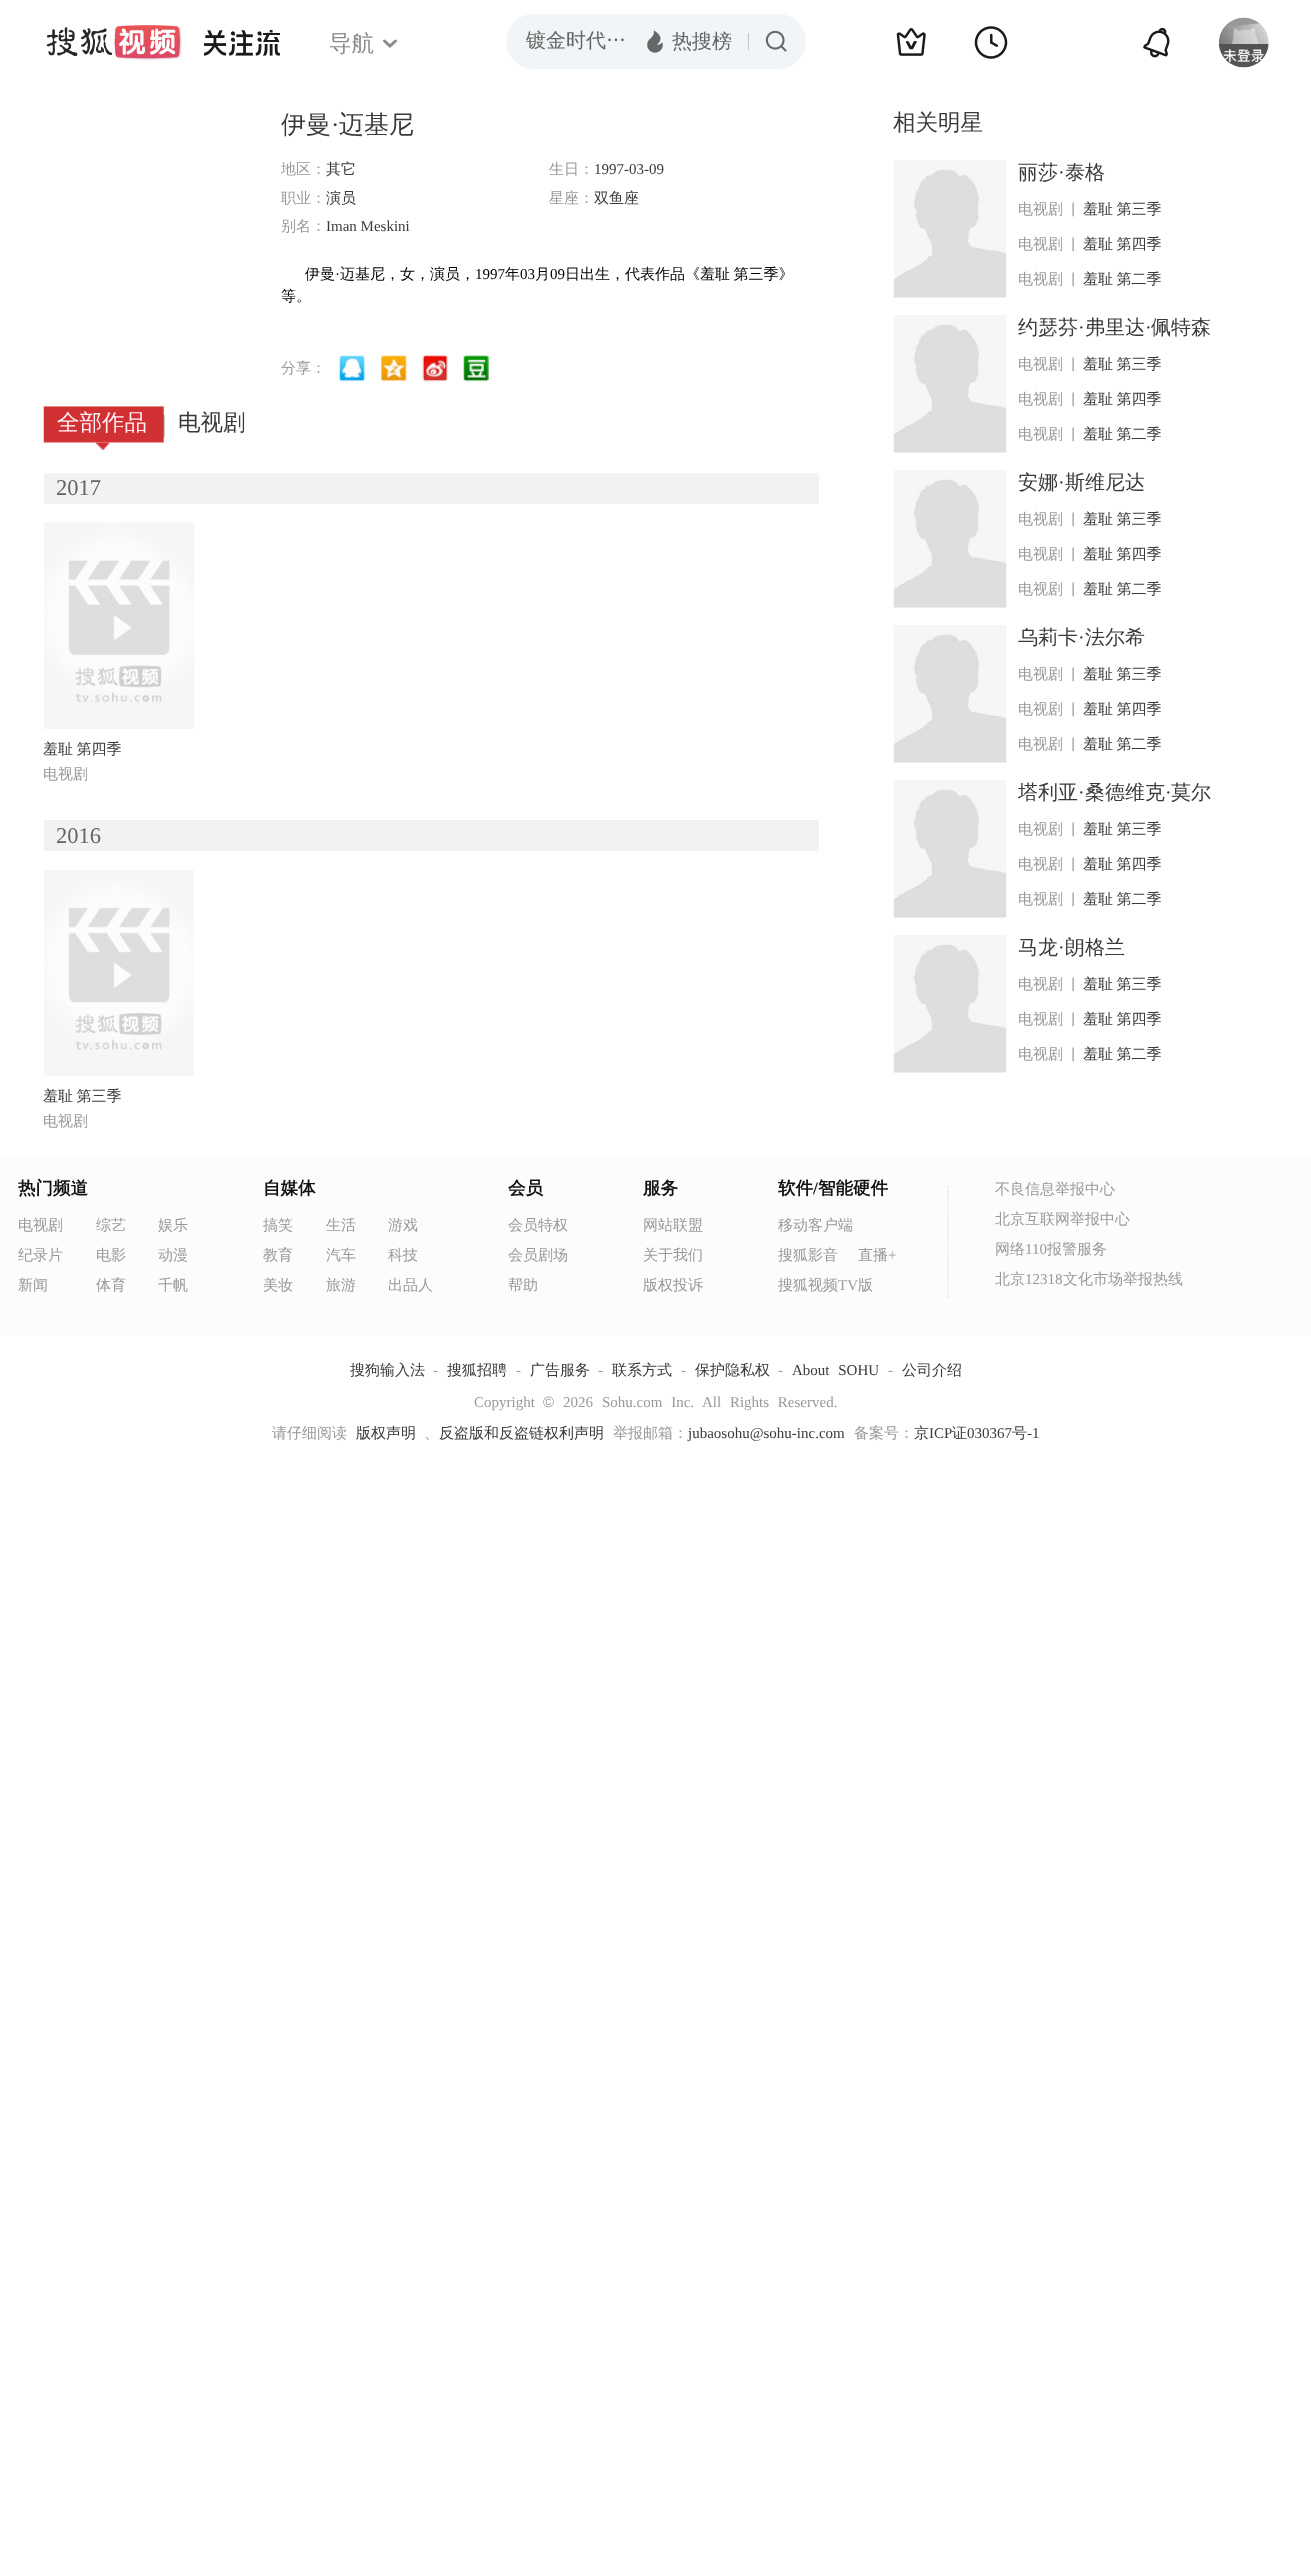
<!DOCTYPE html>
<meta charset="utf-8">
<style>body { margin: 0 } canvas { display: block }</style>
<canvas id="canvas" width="1311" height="2556"></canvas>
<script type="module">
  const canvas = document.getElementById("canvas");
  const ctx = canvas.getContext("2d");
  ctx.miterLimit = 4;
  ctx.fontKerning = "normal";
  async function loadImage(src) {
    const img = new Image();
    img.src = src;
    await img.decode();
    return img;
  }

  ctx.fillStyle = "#ffffff";
  ctx.fillRect(0, 0, 1311, 2556);
  ctx.drawImage(await loadImage("img1.png"), 46, 24, 137, 37);
  ctx.drawImage(await loadImage("img2.png"), 204, 30, 76, 26);
  ctx.font = "500 22.5px WenQuanYi Zen Hei";
  ctx.fillStyle = "#888a8e";
  ctx.fillText("导航", 329, 51);
  ctx.beginPath();
  ctx.moveTo(384.5, 41);
  ctx.lineTo(390, 46);
  ctx.lineTo(395.5, 41);
  ctx.strokeStyle = "#888a8e";
  ctx.lineWidth = 3;
  ctx.lineCap = "round";
  ctx.stroke();
  ctx.fillStyle = "#f2f5f7";
  ctx.beginPath();
  ctx.roundRect(506, 14, 300, 55, 27.5);
  ctx.fill();
  ctx.font = "500 20px WenQuanYi Zen Hei";
  ctx.fillStyle = "#646464";
  ctx.fillText("镀金时代…", 526, 47);
  ctx.drawImage(await loadImage("img3.png"), 647, 30, 16, 23);
  ctx.fillText("热搜榜", 672, 48);
  ctx.fillStyle = "#c2c4c6";
  ctx.fillRect(748, 33, 1, 17);
  ctx.drawImage(await loadImage("img4.png"), 765, 30, 22, 22);
  ctx.drawImage(await loadImage("img5.png"), 896, 28, 30, 28);
  ctx.drawImage(await loadImage("img6.png"), 974, 26, 34, 33);
  ctx.drawImage(await loadImage("img7.png"), 1143, 27, 27, 31);
  ctx.drawImage(await loadImage("img8.png"), 1218, 17, 51, 51);
  ctx.font = "500 25px WenQuanYi Zen Hei";
  ctx.fillStyle = "#3a3a3a";
  ctx.fillText("伊曼", 281, 133);
  ctx.font = "25px Liberation Serif";
  ctx.fillText("·", 331, 133);
  ctx.font = "500 25px WenQuanYi Zen Hei";
  ctx.fillText("迈基尼", 339, 133);
  ctx.font = "500 15px WenQuanYi Zen Hei";
  ctx.fillStyle = "#999999";
  ctx.fillText("地区：", 281, 174);
  ctx.fillStyle = "#3a3a3a";
  ctx.fillText("其它", 326, 174);
  ctx.fillStyle = "#999999";
  ctx.fillText("生日：", 549, 174);
  ctx.font = "15px Liberation Serif";
  ctx.fillStyle = "#3a3a3a";
  ctx.fillText("1997-03-09", 594, 174);
  ctx.font = "500 15px WenQuanYi Zen Hei";
  ctx.fillStyle = "#999999";
  ctx.fillText("职业：", 281, 203);
  ctx.fillStyle = "#3a3a3a";
  ctx.fillText("演员", 326, 203);
  ctx.fillStyle = "#999999";
  ctx.fillText("星座：", 549, 203);
  ctx.fillStyle = "#3a3a3a";
  ctx.fillText("双鱼座", 594, 203);
  ctx.fillStyle = "#999999";
  ctx.fillText("别名：", 281, 231);
  ctx.font = "15px Liberation Serif";
  ctx.fillStyle = "#3a3a3a";
  ctx.fillText("Iman Meskini", 326, 231);
  ctx.font = "500 15px WenQuanYi Zen Hei";
  ctx.fillStyle = "#000000";
  ctx.fillText("伊曼", 305, 279);
  ctx.font = "15px Liberation Serif";
  ctx.fillText("·", 335, 279);
  ctx.font = "500 15px WenQuanYi Zen Hei";
  ctx.fillText("迈基尼，女，演员，", 340, 279);
  ctx.font = "15px Liberation Serif";
  ctx.fillText("1997", 475, 279);
  ctx.font = "500 15px WenQuanYi Zen Hei";
  ctx.fillText("年", 505, 279);
  ctx.font = "15px Liberation Serif";
  ctx.fillText("03", 520, 279);
  ctx.font = "500 15px WenQuanYi Zen Hei";
  ctx.fillText("月", 535, 279);
  ctx.font = "15px Liberation Serif";
  ctx.fillText("09", 550, 279);
  ctx.wordSpacing = "-1px";
  ctx.font = "500 15px WenQuanYi Zen Hei";
  ctx.fillText("日出生，代表作品《羞耻 第三季》", 565, 279);
  ctx.wordSpacing = "0px";
  ctx.fillText("等。", 281, 301);
  ctx.fillStyle = "#999999";
  ctx.fillText("分享：", 281, 373);
  ctx.drawImage(await loadImage("img9.png"), 338, 355, 27, 27);
  ctx.drawImage(await loadImage("img10.png"), 381, 355, 26, 27);
  ctx.drawImage(await loadImage("img11.png"), 422, 355, 26, 27);
  ctx.drawImage(await loadImage("img12.png"), 463, 355, 26, 27);
  ctx.fillStyle = "#cacaca";
  ctx.fillRect(163, 415, 2, 22);
  ctx.drawImage(await loadImage("img13.png"), 43, 406, 121, 37);
  ctx.font = "500 22.5px WenQuanYi Zen Hei";
  ctx.fillStyle = "#fff0f3";
  ctx.fillText("全部作品", 57, 430);
  ctx.drawImage(await loadImage("img14.png"), 95, 442, 15, 8);
  ctx.fillStyle = "#3a3a3a";
  ctx.fillText("电视剧", 178, 430);
  ctx.fillStyle = "#f2f2f2";
  ctx.fillRect(44, 473, 775, 31);
  ctx.font = "22.5px Liberation Serif";
  ctx.fillStyle = "#646464";
  ctx.fillText("2017", 56, 495);
  ctx.fillStyle = "#f0f0f0";
  ctx.fillRect(44, 523, 150, 206);
  ctx.drawImage(await loadImage("img15.png"), 44, 522, 150, 207);
  ctx.wordSpacing = "-1px";
  ctx.font = "500 15px WenQuanYi Zen Hei";
  ctx.fillStyle = "#3a3a3a";
  ctx.fillText("羞耻 第四季", 43, 754);
  ctx.wordSpacing = "0px";
  ctx.fillStyle = "#999999";
  ctx.fillText("电视剧", 43, 779);
  ctx.fillStyle = "#f2f2f2";
  ctx.fillRect(44, 820, 775, 31);
  ctx.font = "22.5px Liberation Serif";
  ctx.fillStyle = "#646464";
  ctx.fillText("2016", 56, 843);
  ctx.drawImage(await loadImage("img16.png"), 44, 870, 150, 206);
  ctx.wordSpacing = "-1px";
  ctx.font = "500 15px WenQuanYi Zen Hei";
  ctx.fillStyle = "#3a3a3a";
  ctx.fillText("羞耻 第三季", 43, 1101);
  ctx.wordSpacing = "0px";
  ctx.fillStyle = "#999999";
  ctx.fillText("电视剧", 43, 1126);
  ctx.font = "500 22.5px WenQuanYi Zen Hei";
  ctx.fillStyle = "#3a3a3a";
  ctx.fillText("相关明星", 893, 130);
  ctx.drawImage(await loadImage("img17.png"), 893, 160, 114, 138);
  ctx.font = "500 20px WenQuanYi Zen Hei";
  ctx.fillText("丽莎", 1018, 179);
  ctx.font = "20px Liberation Serif";
  ctx.fillText("·", 1058, 179);
  ctx.font = "500 20px WenQuanYi Zen Hei";
  ctx.fillText("泰格", 1065, 179);
  ctx.drawImage(await loadImage("img18.png"), 1072, 202, 2, 15);
  ctx.font = "500 15px WenQuanYi Zen Hei";
  ctx.fillStyle = "#999999";
  ctx.fillText("电视剧", 1018, 214);
  ctx.wordSpacing = "-1px";
  ctx.fillStyle = "#3a3a3a";
  ctx.fillText("羞耻 第三季", 1083, 214);
  ctx.drawImage(await loadImage("img18.png"), 1072, 237, 2, 15);
  ctx.wordSpacing = "0px";
  ctx.fillStyle = "#999999";
  ctx.fillText("电视剧", 1018, 249);
  ctx.wordSpacing = "-1px";
  ctx.fillStyle = "#3a3a3a";
  ctx.fillText("羞耻 第四季", 1083, 249);
  ctx.drawImage(await loadImage("img18.png"), 1072, 272, 2, 15);
  ctx.wordSpacing = "0px";
  ctx.fillStyle = "#999999";
  ctx.fillText("电视剧", 1018, 284);
  ctx.wordSpacing = "-1px";
  ctx.fillStyle = "#3a3a3a";
  ctx.fillText("羞耻 第二季", 1083, 284);
  ctx.drawImage(await loadImage("img17.png"), 893, 315, 114, 138);
  ctx.wordSpacing = "0px";
  ctx.font = "500 20px WenQuanYi Zen Hei";
  ctx.fillText("约瑟芬", 1018, 334);
  ctx.font = "20px Liberation Serif";
  ctx.fillText("·", 1078, 334);
  ctx.font = "500 20px WenQuanYi Zen Hei";
  ctx.fillText("弗里达", 1085, 334);
  ctx.font = "20px Liberation Serif";
  ctx.fillText("·", 1145, 334);
  ctx.font = "500 20px WenQuanYi Zen Hei";
  ctx.fillText("佩特森", 1151, 334);
  ctx.drawImage(await loadImage("img18.png"), 1072, 357, 2, 15);
  ctx.font = "500 15px WenQuanYi Zen Hei";
  ctx.fillStyle = "#999999";
  ctx.fillText("电视剧", 1018, 369);
  ctx.wordSpacing = "-1px";
  ctx.fillStyle = "#3a3a3a";
  ctx.fillText("羞耻 第三季", 1083, 369);
  ctx.drawImage(await loadImage("img18.png"), 1072, 392, 2, 15);
  ctx.wordSpacing = "0px";
  ctx.fillStyle = "#999999";
  ctx.fillText("电视剧", 1018, 404);
  ctx.wordSpacing = "-1px";
  ctx.fillStyle = "#3a3a3a";
  ctx.fillText("羞耻 第四季", 1083, 404);
  ctx.drawImage(await loadImage("img18.png"), 1072, 427, 2, 15);
  ctx.wordSpacing = "0px";
  ctx.fillStyle = "#999999";
  ctx.fillText("电视剧", 1018, 439);
  ctx.wordSpacing = "-1px";
  ctx.fillStyle = "#3a3a3a";
  ctx.fillText("羞耻 第二季", 1083, 439);
  ctx.drawImage(await loadImage("img17.png"), 893, 470, 114, 138);
  ctx.wordSpacing = "0px";
  ctx.font = "500 20px WenQuanYi Zen Hei";
  ctx.fillText("安娜", 1018, 489);
  ctx.font = "20px Liberation Serif";
  ctx.fillText("·", 1058, 489);
  ctx.font = "500 20px WenQuanYi Zen Hei";
  ctx.fillText("斯维尼达", 1065, 489);
  ctx.drawImage(await loadImage("img18.png"), 1072, 512, 2, 15);
  ctx.font = "500 15px WenQuanYi Zen Hei";
  ctx.fillStyle = "#999999";
  ctx.fillText("电视剧", 1018, 524);
  ctx.wordSpacing = "-1px";
  ctx.fillStyle = "#3a3a3a";
  ctx.fillText("羞耻 第三季", 1083, 524);
  ctx.drawImage(await loadImage("img18.png"), 1072, 547, 2, 15);
  ctx.wordSpacing = "0px";
  ctx.fillStyle = "#999999";
  ctx.fillText("电视剧", 1018, 559);
  ctx.wordSpacing = "-1px";
  ctx.fillStyle = "#3a3a3a";
  ctx.fillText("羞耻 第四季", 1083, 559);
  ctx.drawImage(await loadImage("img18.png"), 1072, 582, 2, 15);
  ctx.wordSpacing = "0px";
  ctx.fillStyle = "#999999";
  ctx.fillText("电视剧", 1018, 594);
  ctx.wordSpacing = "-1px";
  ctx.fillStyle = "#3a3a3a";
  ctx.fillText("羞耻 第二季", 1083, 594);
  ctx.drawImage(await loadImage("img17.png"), 893, 625, 114, 138);
  ctx.wordSpacing = "0px";
  ctx.font = "500 20px WenQuanYi Zen Hei";
  ctx.fillText("乌莉卡", 1018, 644);
  ctx.font = "20px Liberation Serif";
  ctx.fillText("·", 1078, 644);
  ctx.font = "500 20px WenQuanYi Zen Hei";
  ctx.fillText("法尔希", 1085, 644);
  ctx.drawImage(await loadImage("img18.png"), 1072, 667, 2, 15);
  ctx.font = "500 15px WenQuanYi Zen Hei";
  ctx.fillStyle = "#999999";
  ctx.fillText("电视剧", 1018, 679);
  ctx.wordSpacing = "-1px";
  ctx.fillStyle = "#3a3a3a";
  ctx.fillText("羞耻 第三季", 1083, 679);
  ctx.drawImage(await loadImage("img18.png"), 1072, 702, 2, 15);
  ctx.wordSpacing = "0px";
  ctx.fillStyle = "#999999";
  ctx.fillText("电视剧", 1018, 714);
  ctx.wordSpacing = "-1px";
  ctx.fillStyle = "#3a3a3a";
  ctx.fillText("羞耻 第四季", 1083, 714);
  ctx.drawImage(await loadImage("img18.png"), 1072, 737, 2, 15);
  ctx.wordSpacing = "0px";
  ctx.fillStyle = "#999999";
  ctx.fillText("电视剧", 1018, 749);
  ctx.wordSpacing = "-1px";
  ctx.fillStyle = "#3a3a3a";
  ctx.fillText("羞耻 第二季", 1083, 749);
  ctx.drawImage(await loadImage("img17.png"), 893, 780, 114, 138);
  ctx.wordSpacing = "0px";
  ctx.font = "500 20px WenQuanYi Zen Hei";
  ctx.fillText("塔利亚", 1018, 799);
  ctx.font = "20px Liberation Serif";
  ctx.fillText("·", 1078, 799);
  ctx.font = "500 20px WenQuanYi Zen Hei";
  ctx.fillText("桑德维克", 1085, 799);
  ctx.font = "20px Liberation Serif";
  ctx.fillText("·", 1165, 799);
  ctx.font = "500 20px WenQuanYi Zen Hei";
  ctx.fillText("莫尔", 1171, 799);
  ctx.drawImage(await loadImage("img18.png"), 1072, 822, 2, 15);
  ctx.font = "500 15px WenQuanYi Zen Hei";
  ctx.fillStyle = "#999999";
  ctx.fillText("电视剧", 1018, 834);
  ctx.wordSpacing = "-1px";
  ctx.fillStyle = "#3a3a3a";
  ctx.fillText("羞耻 第三季", 1083, 834);
  ctx.drawImage(await loadImage("img18.png"), 1072, 857, 2, 15);
  ctx.wordSpacing = "0px";
  ctx.fillStyle = "#999999";
  ctx.fillText("电视剧", 1018, 869);
  ctx.wordSpacing = "-1px";
  ctx.fillStyle = "#3a3a3a";
  ctx.fillText("羞耻 第四季", 1083, 869);
  ctx.drawImage(await loadImage("img18.png"), 1072, 892, 2, 15);
  ctx.wordSpacing = "0px";
  ctx.fillStyle = "#999999";
  ctx.fillText("电视剧", 1018, 904);
  ctx.wordSpacing = "-1px";
  ctx.fillStyle = "#3a3a3a";
  ctx.fillText("羞耻 第二季", 1083, 904);
  ctx.drawImage(await loadImage("img17.png"), 893, 935, 114, 138);
  ctx.wordSpacing = "0px";
  ctx.font = "500 20px WenQuanYi Zen Hei";
  ctx.fillText("马龙", 1018, 954);
  ctx.font = "20px Liberation Serif";
  ctx.fillText("·", 1058, 954);
  ctx.font = "500 20px WenQuanYi Zen Hei";
  ctx.fillText("朗格兰", 1065, 954);
  ctx.drawImage(await loadImage("img18.png"), 1072, 977, 2, 15);
  ctx.font = "500 15px WenQuanYi Zen Hei";
  ctx.fillStyle = "#999999";
  ctx.fillText("电视剧", 1018, 989);
  ctx.wordSpacing = "-1px";
  ctx.fillStyle = "#3a3a3a";
  ctx.fillText("羞耻 第三季", 1083, 989);
  ctx.drawImage(await loadImage("img18.png"), 1072, 1012, 2, 15);
  ctx.wordSpacing = "0px";
  ctx.fillStyle = "#999999";
  ctx.fillText("电视剧", 1018, 1024);
  ctx.wordSpacing = "-1px";
  ctx.fillStyle = "#3a3a3a";
  ctx.fillText("羞耻 第四季", 1083, 1024);
  ctx.drawImage(await loadImage("img18.png"), 1072, 1047, 2, 15);
  ctx.wordSpacing = "0px";
  ctx.fillStyle = "#999999";
  ctx.fillText("电视剧", 1018, 1059);
  ctx.wordSpacing = "-1px";
  ctx.fillStyle = "#3a3a3a";
  ctx.fillText("羞耻 第二季", 1083, 1059);
  ctx.fillStyle = "#fcfcfc";
  ctx.fillRect(0, 1155, 1311, 181);
  ctx.wordSpacing = "0px";
  ctx.font = "bold 17.5px WenQuanYi Zen Hei";
  ctx.fillStyle = "#111111";
  ctx.fillText("热门频道", 18, 1194);
  ctx.font = "500 15px WenQuanYi Zen Hei";
  ctx.fillStyle = "#999999";
  ctx.fillText("电视剧", 18, 1230);
  ctx.fillText("纪录片", 18, 1260);
  ctx.fillText("新闻", 18, 1290);
  ctx.fillText("综艺", 96, 1230);
  ctx.fillText("电影", 96, 1260);
  ctx.fillText("体育", 96, 1290);
  ctx.fillText("娱乐", 158, 1230);
  ctx.fillText("动漫", 158, 1260);
  ctx.fillText("千帆", 158, 1290);
  ctx.font = "bold 17.5px WenQuanYi Zen Hei";
  ctx.fillStyle = "#111111";
  ctx.fillText("自媒体", 263, 1194);
  ctx.font = "500 15px WenQuanYi Zen Hei";
  ctx.fillStyle = "#999999";
  ctx.fillText("搞笑", 263, 1230);
  ctx.fillText("教育", 263, 1260);
  ctx.fillText("美妆", 263, 1290);
  ctx.fillText("生活", 326, 1230);
  ctx.fillText("汽车", 326, 1260);
  ctx.fillText("旅游", 326, 1290);
  ctx.fillText("游戏", 388, 1230);
  ctx.fillText("科技", 388, 1260);
  ctx.fillText("出品人", 388, 1290);
  ctx.font = "bold 17.5px WenQuanYi Zen Hei";
  ctx.fillStyle = "#111111";
  ctx.fillText("会员", 508, 1194);
  ctx.font = "500 15px WenQuanYi Zen Hei";
  ctx.fillStyle = "#999999";
  ctx.fillText("会员特权", 508, 1230);
  ctx.fillText("会员剧场", 508, 1260);
  ctx.fillText("帮助", 508, 1290);
  ctx.font = "bold 17.5px WenQuanYi Zen Hei";
  ctx.fillStyle = "#111111";
  ctx.fillText("服务", 643, 1194);
  ctx.font = "500 15px WenQuanYi Zen Hei";
  ctx.fillStyle = "#999999";
  ctx.fillText("网站联盟", 643, 1230);
  ctx.fillText("关于我们", 643, 1260);
  ctx.fillText("版权投诉", 643, 1290);
  ctx.font = "bold 17.5px WenQuanYi Zen Hei";
  ctx.fillStyle = "#111111";
  ctx.fillText("软件", 778, 1194);
  ctx.font = "bold 17.5px Liberation Serif";
  ctx.fillText("/", 813, 1194);
  ctx.font = "bold 17.5px WenQuanYi Zen Hei";
  ctx.fillText("智能硬件", 818, 1194);
  ctx.font = "500 15px WenQuanYi Zen Hei";
  ctx.fillStyle = "#999999";
  ctx.fillText("移动客户端", 778, 1230);
  ctx.fillText("搜狐影音", 778, 1260);
  ctx.fillText("直播", 858, 1260);
  ctx.font = "15px Liberation Serif";
  ctx.fillText("+", 888, 1260);
  ctx.font = "500 15px WenQuanYi Zen Hei";
  ctx.fillText("搜狐视频", 778, 1290);
  ctx.font = "15px Liberation Serif";
  ctx.fillText("TV", 838, 1290);
  ctx.font = "500 15px WenQuanYi Zen Hei";
  ctx.fillText("版", 858, 1290);
  ctx.beginPath();
  ctx.moveTo(948, 1186);
  ctx.lineTo(948, 1299);
  ctx.strokeStyle = "#dddddd";
  ctx.lineWidth = 1.2;
  ctx.lineCap = "butt";
  ctx.setLineDash([1.25, 1.25]);
  ctx.stroke();
  ctx.fillText("不良信息举报中心", 995, 1194);
  ctx.fillText("北京互联网举报中心", 995, 1224);
  ctx.fillText("网络", 995, 1254);
  ctx.font = "15px Liberation Serif";
  ctx.fillText("110", 1025, 1254);
  ctx.font = "500 15px WenQuanYi Zen Hei";
  ctx.fillText("报警服务", 1047, 1254);
  ctx.fillText("北京", 995, 1284);
  ctx.font = "15px Liberation Serif";
  ctx.fillText("12318", 1025, 1284);
  ctx.font = "500 15px WenQuanYi Zen Hei";
  ctx.fillText("文化市场举报热线", 1063, 1284);
  ctx.fillStyle = "#3a3a3a";
  ctx.fillText("搜狗输入法", 350, 1375);
  ctx.font = "15px Liberation Serif";
  ctx.fillStyle = "#999999";
  ctx.fillText("-", 433, 1375);
  ctx.font = "500 15px WenQuanYi Zen Hei";
  ctx.fillStyle = "#3a3a3a";
  ctx.fillText("搜狐招聘", 447, 1375);
  ctx.font = "15px Liberation Serif";
  ctx.fillStyle = "#999999";
  ctx.fillText("-", 516, 1375);
  ctx.font = "500 15px WenQuanYi Zen Hei";
  ctx.fillStyle = "#3a3a3a";
  ctx.fillText("广告服务", 530, 1375);
  ctx.font = "15px Liberation Serif";
  ctx.fillStyle = "#999999";
  ctx.fillText("-", 598, 1375);
  ctx.font = "500 15px WenQuanYi Zen Hei";
  ctx.fillStyle = "#3a3a3a";
  ctx.fillText("联系方式", 612, 1375);
  ctx.font = "15px Liberation Serif";
  ctx.fillStyle = "#999999";
  ctx.fillText("-", 681, 1375);
  ctx.font = "500 15px WenQuanYi Zen Hei";
  ctx.fillStyle = "#3a3a3a";
  ctx.fillText("保护隐私权", 695, 1375);
  ctx.font = "15px Liberation Serif";
  ctx.fillStyle = "#999999";
  ctx.fillText("-", 778, 1375);
  ctx.wordSpacing = "5px";
  ctx.fillStyle = "#3a3a3a";
  ctx.fillText("About SOHU", 792, 1375);
  ctx.wordSpacing = "0px";
  ctx.fillStyle = "#999999";
  ctx.fillText("-", 888, 1375);
  ctx.font = "500 15px WenQuanYi Zen Hei";
  ctx.fillStyle = "#3a3a3a";
  ctx.fillText("公司介绍", 902, 1375);
  ctx.font = "15px Liberation Serif";
  ctx.fillStyle = "#999999";
  ctx.fillText("Copyright", 474, 1407);
  ctx.font = "15px Liberation Sans";
  ctx.fillText("©", 543, 1407);
  ctx.font = "15px Liberation Serif";
  ctx.fillText("2026", 563, 1407);
  ctx.wordSpacing = "5px";
  ctx.fillText("Sohu.com Inc. All Rights Reserved.", 602, 1407);
  ctx.wordSpacing = "0px";
  ctx.font = "500 15px WenQuanYi Zen Hei";
  ctx.fillText("请仔细阅读", 272, 1438);
  ctx.fillStyle = "#3a3a3a";
  ctx.fillText("版权声明", 356, 1438);
  ctx.fillStyle = "#999999";
  ctx.fillText("、", 424, 1438);
  ctx.fillStyle = "#3a3a3a";
  ctx.fillText("反盗版和反盗链权利声明", 439, 1438);
  ctx.fillStyle = "#999999";
  ctx.fillText("举报邮箱：", 613, 1438);
  ctx.font = "15px Liberation Serif";
  ctx.fillStyle = "#3a3a3a";
  ctx.fillText("jubaosohu@sohu-inc.com", 688, 1438);
  ctx.font = "500 15px WenQuanYi Zen Hei";
  ctx.fillStyle = "#999999";
  ctx.fillText("备案号：", 854, 1438);
  ctx.fillStyle = "#3a3a3a";
  ctx.fillText("京", 914, 1438);
  ctx.font = "15px Liberation Serif";
  ctx.fillText("ICP", 929, 1438);
  ctx.font = "500 15px WenQuanYi Zen Hei";
  ctx.fillText("证", 952, 1438);
  ctx.font = "15px Liberation Serif";
  ctx.fillText("030367", 967, 1438);
  ctx.font = "500 15px WenQuanYi Zen Hei";
  ctx.fillText("号", 1012, 1438);
  ctx.font = "15px Liberation Serif";
  ctx.fillText("-1", 1027, 1438);
</script>
